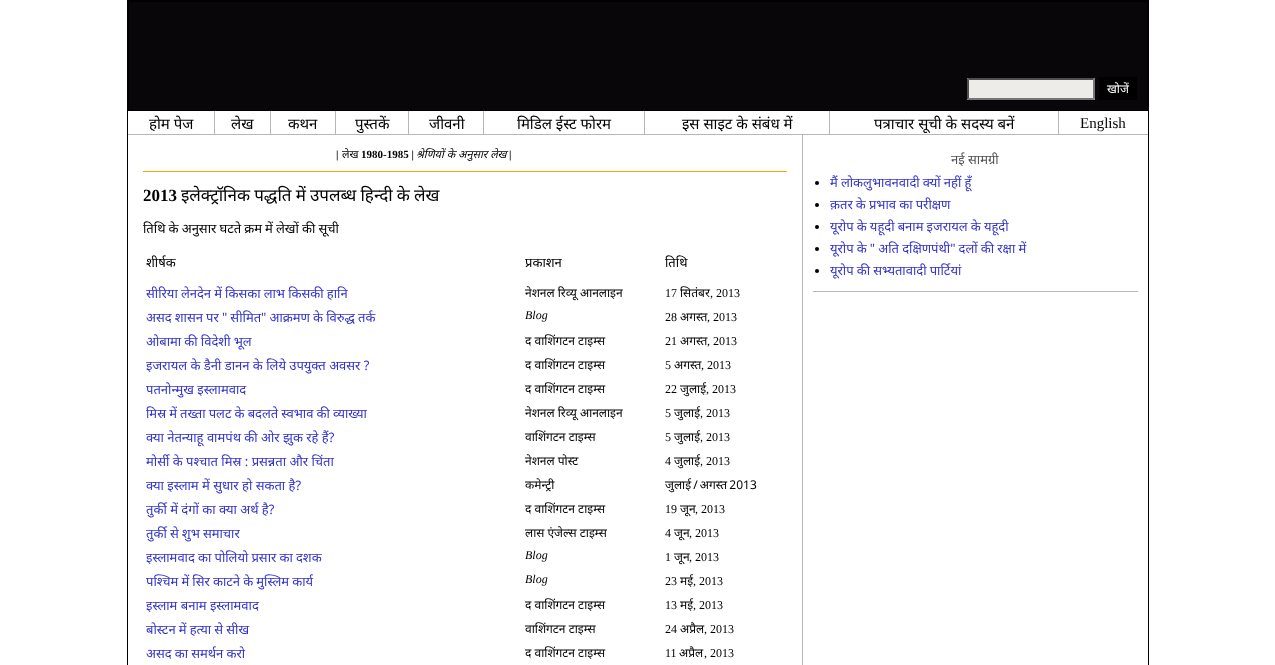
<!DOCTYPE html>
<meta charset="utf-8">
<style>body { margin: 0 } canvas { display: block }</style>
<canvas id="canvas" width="1275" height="665"></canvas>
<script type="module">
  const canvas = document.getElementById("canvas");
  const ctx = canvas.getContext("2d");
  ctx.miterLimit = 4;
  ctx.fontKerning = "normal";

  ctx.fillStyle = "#ffffff";
  ctx.fillRect(0, 0, 1275, 665);
  ctx.strokeStyle = "#000000";
  ctx.strokeRect(127.5, 0.5, 1021, 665);
  ctx.strokeRect(128.5, 1.5, 1019, 109);
  ctx.fillStyle = "#090609";
  ctx.fillRect(129, 2, 1018, 108);
  ctx.fillStyle = "#eeece9";
  ctx.fillRect(967, 78, 128, 22);
  ctx.fillStyle = "#4f4f4f";
  ctx.beginPath();
  ctx.moveTo(967, 78);
  ctx.lineTo(1095, 78);
  ctx.lineTo(1093, 80);
  ctx.lineTo(969, 80);
  ctx.closePath();
  ctx.fill();
  ctx.fillStyle = "#767676";
  ctx.beginPath();
  ctx.moveTo(1095, 78);
  ctx.lineTo(1095, 100);
  ctx.lineTo(1093, 98);
  ctx.lineTo(1093, 80);
  ctx.closePath();
  ctx.fill();
  ctx.beginPath();
  ctx.moveTo(1095, 100);
  ctx.lineTo(967, 100);
  ctx.lineTo(969, 98);
  ctx.lineTo(1093, 98);
  ctx.closePath();
  ctx.fill();
  ctx.fillStyle = "#4f4f4f";
  ctx.beginPath();
  ctx.moveTo(967, 100);
  ctx.lineTo(967, 78);
  ctx.lineTo(969, 80);
  ctx.lineTo(969, 98);
  ctx.closePath();
  ctx.fill();
  ctx.fillStyle = "#000000";
  ctx.fillRect(1099, 77, 38, 23);
  ctx.font = "12px Noto Sans";
  ctx.fillStyle = "#ffffff";
  ctx.fillText("खोजें", 1107, 93);
  ctx.fillStyle = "#b7b7b7";
  ctx.fillRect(214, 111, 1, 24);
  ctx.fillRect(128, 134, 87, 1);
  ctx.font = "15px Noto Sans";
  ctx.fillStyle = "#000000";
  ctx.fillText("होम पेज", 149, 129);
  ctx.fillStyle = "#b7b7b7";
  ctx.fillRect(270, 111, 1, 24);
  ctx.fillRect(215, 134, 56, 1);
  ctx.fillStyle = "#000000";
  ctx.fillText("लेख", 231, 129);
  ctx.fillStyle = "#b7b7b7";
  ctx.fillRect(335, 111, 1, 24);
  ctx.fillRect(271, 134, 65, 1);
  ctx.fillStyle = "#000000";
  ctx.fillText("कथन", 288, 129);
  ctx.fillStyle = "#b7b7b7";
  ctx.fillRect(408, 111, 1, 24);
  ctx.fillRect(336, 134, 73, 1);
  ctx.fillStyle = "#000000";
  ctx.fillText("पुस्तकें", 355, 129);
  ctx.fillStyle = "#b7b7b7";
  ctx.fillRect(483, 111, 1, 24);
  ctx.fillRect(409, 134, 75, 1);
  ctx.fillStyle = "#000000";
  ctx.fillText("जीवनी", 429, 129);
  ctx.fillStyle = "#b7b7b7";
  ctx.fillRect(644, 111, 1, 24);
  ctx.fillRect(484, 134, 161, 1);
  ctx.fillStyle = "#000000";
  ctx.fillText("मिडिल ईस्ट फोरम", 517, 129);
  ctx.fillStyle = "#b7b7b7";
  ctx.fillRect(829, 111, 1, 24);
  ctx.fillRect(645, 134, 185, 1);
  ctx.fillStyle = "#000000";
  ctx.fillText("इस साइट के संबंध में", 682, 129);
  ctx.fillStyle = "#b7b7b7";
  ctx.fillRect(1058, 111, 1, 24);
  ctx.fillRect(830, 134, 318, 1);
  ctx.fillStyle = "#000000";
  ctx.fillText("पत्राचार सूची के सदस्य बनें", 874, 129);
  ctx.font = "15px Liberation Serif";
  ctx.fillText("English", 1080, 128);
  ctx.fillStyle = "#ffa500";
  ctx.fillRect(143, 171, 644, 1);
  ctx.font = "bold 11px Liberation Serif";
  ctx.fillStyle = "#000000";
  ctx.fillText("|", 336, 158);
  ctx.font = "11px Noto Sans";
  ctx.fillText("लेख", 342, 158);
  ctx.font = "italic 11px Noto Sans";
  ctx.fillText("श्रेणियों के अनुसार लेख", 416, 158);
  ctx.font = "bold 11px Liberation Serif";
  ctx.fillText("1980-1985 |", 361, 158);
  ctx.fillText("|", 509, 158);
  ctx.font = "bold 17px Liberation Serif";
  ctx.fillText("2013", 143, 201);
  ctx.wordSpacing = "-0.25px";
  ctx.font = "17px Noto Sans";
  ctx.fillText("इलेक्ट्रॉनिक पद्धति में उपलब्ध हिन्दी के लेख", 181, 201);
  ctx.font = "13px Noto Sans";
  ctx.fillText("तिथि के अनुसार घटते क्रम में लेखों की सूची", 143, 233);
  ctx.wordSpacing = "0px";
  ctx.fillText("शीर्षक", 146, 267);
  ctx.fillText("प्रकाशन", 525, 267);
  ctx.fillText("तिथि", 665, 267);
  ctx.wordSpacing = "-0.25px";
  ctx.fillStyle = "#3333cc";
  ctx.fillText("सीरिया लेनदेन में किसका लाभ किसकी हानि", 146, 298);
  ctx.wordSpacing = "0px";
  ctx.font = "12px Noto Sans";
  ctx.fillStyle = "#000000";
  ctx.fillText("नेशनल रिव्यू आनलाइन", 525, 297);
  ctx.font = "12px Liberation Serif";
  ctx.fillText("17", 665, 297);
  ctx.font = "12px Noto Sans";
  ctx.fillText("सितंबर", 680, 297);
  ctx.font = "12px Liberation Serif";
  ctx.fillText(", 2013", 710, 297);
  ctx.wordSpacing = "-0.25px";
  ctx.font = "13px Noto Sans";
  ctx.fillStyle = "#3333cc";
  ctx.fillText("असद शासन पर \" सीमित\" आक्रमण के विरुद्ध तर्क", 146, 322);
  ctx.wordSpacing = "0px";
  ctx.font = "italic 12px Liberation Serif";
  ctx.fillStyle = "#000000";
  ctx.fillText("Blog", 525, 319);
  ctx.font = "12px Liberation Serif";
  ctx.fillText("28", 665, 321);
  ctx.font = "12px Noto Sans";
  ctx.fillText("अगस्त", 680, 321);
  ctx.font = "12px Liberation Serif";
  ctx.fillText(", 2013", 707, 321);
  ctx.wordSpacing = "-0.25px";
  ctx.font = "13px Noto Sans";
  ctx.fillStyle = "#3333cc";
  ctx.fillText("ओबामा की विदेशी भूल", 146, 346);
  ctx.wordSpacing = "0px";
  ctx.font = "12px Noto Sans";
  ctx.fillStyle = "#000000";
  ctx.fillText("द वाशिंगटन टाइम्स", 525, 345);
  ctx.font = "12px Liberation Serif";
  ctx.fillText("21", 665, 345);
  ctx.font = "12px Noto Sans";
  ctx.fillText("अगस्त", 680, 345);
  ctx.font = "12px Liberation Serif";
  ctx.fillText(", 2013", 707, 345);
  ctx.font = "13px Noto Sans";
  ctx.fillStyle = "#3333cc";
  ctx.fillText("इजरायल के डैनी डानन के लिये उपयुक्त अवसर ?", 146, 370);
  ctx.font = "12px Noto Sans";
  ctx.fillStyle = "#000000";
  ctx.fillText("द वाशिंगटन टाइम्स", 525, 369);
  ctx.font = "12px Liberation Serif";
  ctx.fillText("5", 665, 369);
  ctx.font = "12px Noto Sans";
  ctx.fillText("अगस्त", 674, 369);
  ctx.font = "12px Liberation Serif";
  ctx.fillText(", 2013", 701, 369);
  ctx.font = "13px Noto Sans";
  ctx.fillStyle = "#3333cc";
  ctx.fillText("पतनोन्मुख इस्लामवाद", 146, 394);
  ctx.font = "12px Noto Sans";
  ctx.fillStyle = "#000000";
  ctx.fillText("द वाशिंगटन टाइम्स", 525, 393);
  ctx.font = "12px Liberation Serif";
  ctx.fillText("22", 665, 393);
  ctx.font = "12px Noto Sans";
  ctx.fillText("जुलाई", 680, 393);
  ctx.font = "12px Liberation Serif";
  ctx.fillText(", 2013", 706, 393);
  ctx.wordSpacing = "-0.25px";
  ctx.font = "13px Noto Sans";
  ctx.fillStyle = "#3333cc";
  ctx.fillText("मिस्र में तख्ता पलट के बदलते स्वभाव की व्याख्या", 146, 418);
  ctx.wordSpacing = "0px";
  ctx.font = "12px Noto Sans";
  ctx.fillStyle = "#000000";
  ctx.fillText("नेशनल रिव्यू आनलाइन", 525, 417);
  ctx.font = "12px Liberation Serif";
  ctx.fillText("5", 665, 417);
  ctx.font = "12px Noto Sans";
  ctx.fillText("जुलाई", 674, 417);
  ctx.font = "12px Liberation Serif";
  ctx.fillText(", 2013", 700, 417);
  ctx.font = "13px Noto Sans";
  ctx.fillStyle = "#3333cc";
  ctx.fillText("क्या नेतन्याहू वामपंथ की ओर झुक रहे हैं?", 146, 442);
  ctx.font = "12px Noto Sans";
  ctx.fillStyle = "#000000";
  ctx.fillText("वाशिंगटन टाइम्स", 525, 441);
  ctx.font = "12px Liberation Serif";
  ctx.fillText("5", 665, 441);
  ctx.font = "12px Noto Sans";
  ctx.fillText("जुलाई", 674, 441);
  ctx.font = "12px Liberation Serif";
  ctx.fillText(", 2013", 700, 441);
  ctx.font = "13px Noto Sans";
  ctx.fillStyle = "#3333cc";
  ctx.fillText("मोर्सी के पश्चात मिस्र : प्रसन्नता और चिंता", 146, 466);
  ctx.font = "12px Noto Sans";
  ctx.fillStyle = "#000000";
  ctx.fillText("नेशनल पोस्ट", 525, 465);
  ctx.font = "12px Liberation Serif";
  ctx.fillText("4", 665, 465);
  ctx.font = "12px Noto Sans";
  ctx.fillText("जुलाई", 674, 465);
  ctx.font = "12px Liberation Serif";
  ctx.fillText(", 2013", 700, 465);
  ctx.font = "13px Noto Sans";
  ctx.fillStyle = "#3333cc";
  ctx.fillText("क्या इस्लाम में सुधार हो सकता है?", 146, 490);
  ctx.font = "12px Noto Sans";
  ctx.fillStyle = "#000000";
  ctx.fillText("कमेन्ट्री", 525, 489);
  ctx.wordSpacing = "-1px";
  ctx.fillText("जुलाई / अगस्त 2013", 665, 489);
  ctx.wordSpacing = "0px";
  ctx.font = "13px Noto Sans";
  ctx.fillStyle = "#3333cc";
  ctx.fillText("तुर्की में दंगों का क्या अर्थ है?", 146, 514);
  ctx.font = "12px Noto Sans";
  ctx.fillStyle = "#000000";
  ctx.fillText("द वाशिंगटन टाइम्स", 525, 513);
  ctx.font = "12px Liberation Serif";
  ctx.fillText("19", 665, 513);
  ctx.font = "12px Noto Sans";
  ctx.fillText("जून", 680, 513);
  ctx.font = "12px Liberation Serif";
  ctx.fillText(", 2013", 695, 513);
  ctx.wordSpacing = "-0.25px";
  ctx.font = "13px Noto Sans";
  ctx.fillStyle = "#3333cc";
  ctx.fillText("तुर्की से शुभ समाचार", 146, 538);
  ctx.wordSpacing = "0px";
  ctx.font = "12px Noto Sans";
  ctx.fillStyle = "#000000";
  ctx.fillText("लास एंजेल्स टाइम्स", 525, 537);
  ctx.font = "12px Liberation Serif";
  ctx.fillText("4", 665, 537);
  ctx.font = "12px Noto Sans";
  ctx.fillText("जून", 674, 537);
  ctx.font = "12px Liberation Serif";
  ctx.fillText(", 2013", 689, 537);
  ctx.wordSpacing = "-0.25px";
  ctx.font = "13px Noto Sans";
  ctx.fillStyle = "#3333cc";
  ctx.fillText("इस्लामवाद का पोलियो प्रसार का दशक", 146, 562);
  ctx.wordSpacing = "0px";
  ctx.font = "italic 12px Liberation Serif";
  ctx.fillStyle = "#000000";
  ctx.fillText("Blog", 525, 559);
  ctx.font = "12px Liberation Serif";
  ctx.fillText("1", 665, 561);
  ctx.font = "12px Noto Sans";
  ctx.fillText("जून", 674, 561);
  ctx.font = "12px Liberation Serif";
  ctx.fillText(", 2013", 689, 561);
  ctx.wordSpacing = "-0.25px";
  ctx.font = "13px Noto Sans";
  ctx.fillStyle = "#3333cc";
  ctx.fillText("पश्चिम में सिर काटने के मुस्लिम कार्य", 146, 586);
  ctx.wordSpacing = "0px";
  ctx.font = "italic 12px Liberation Serif";
  ctx.fillStyle = "#000000";
  ctx.fillText("Blog", 525, 583);
  ctx.font = "12px Liberation Serif";
  ctx.fillText("23", 665, 585);
  ctx.font = "12px Noto Sans";
  ctx.fillText("मई", 680, 585);
  ctx.font = "12px Liberation Serif";
  ctx.fillText(", 2013", 693, 585);
  ctx.font = "13px Noto Sans";
  ctx.fillStyle = "#3333cc";
  ctx.fillText("इस्लाम बनाम इस्लामवाद", 146, 610);
  ctx.font = "12px Noto Sans";
  ctx.fillStyle = "#000000";
  ctx.fillText("द वाशिंगटन टाइम्स", 525, 609);
  ctx.font = "12px Liberation Serif";
  ctx.fillText("13", 665, 609);
  ctx.font = "12px Noto Sans";
  ctx.fillText("मई", 680, 609);
  ctx.font = "12px Liberation Serif";
  ctx.fillText(", 2013", 693, 609);
  ctx.wordSpacing = "-0.25px";
  ctx.font = "13px Noto Sans";
  ctx.fillStyle = "#3333cc";
  ctx.fillText("बोस्टन में हत्या से सीख", 146, 634);
  ctx.wordSpacing = "0px";
  ctx.font = "12px Noto Sans";
  ctx.fillStyle = "#000000";
  ctx.fillText("वाशिंगटन टाइम्स", 525, 633);
  ctx.font = "12px Liberation Serif";
  ctx.fillText("24", 665, 633);
  ctx.font = "12px Noto Sans";
  ctx.fillText("अप्रैल", 680, 633);
  ctx.font = "12px Liberation Serif";
  ctx.fillText(", 2013", 704, 633);
  ctx.wordSpacing = "-0.25px";
  ctx.font = "13px Noto Sans";
  ctx.fillStyle = "#3333cc";
  ctx.fillText("असद का समर्थन करो", 146, 658);
  ctx.wordSpacing = "0px";
  ctx.font = "12px Noto Sans";
  ctx.fillStyle = "#000000";
  ctx.fillText("द वाशिंगटन टाइम्स", 525, 657);
  ctx.font = "12px Liberation Serif";
  ctx.fillText("11", 665, 657);
  ctx.font = "12px Noto Sans";
  ctx.fillText("अप्रैल", 679, 657);
  ctx.font = "12px Liberation Serif";
  ctx.fillText(", 2013", 704, 657);
  ctx.fillStyle = "#b7b7b7";
  ctx.fillRect(802, 135, 1, 530);
  ctx.fillRect(813, 291, 325, 1);
  ctx.font = "13px Noto Sans";
  ctx.fillStyle = "#525050";
  ctx.fillText("नई सामग्री", 951, 164);
  ctx.fillStyle = "#000000";
  ctx.beginPath();
  ctx.arc(817, 183, 2, 0, Math.PI * 2);
  ctx.fill();
  ctx.wordSpacing = "-0.25px";
  ctx.fillStyle = "#3333cc";
  ctx.fillText("मैं लोकलुभावनवादी क्यों नहीं हूँ", 830, 187);
  ctx.fillStyle = "#000000";
  ctx.beginPath();
  ctx.arc(817, 205, 2, 0, Math.PI * 2);
  ctx.fill();
  ctx.fillStyle = "#3333cc";
  ctx.fillText("क़तर के प्रभाव का परीक्षण", 830, 209);
  ctx.fillStyle = "#000000";
  ctx.beginPath();
  ctx.arc(817, 227, 2, 0, Math.PI * 2);
  ctx.fill();
  ctx.fillStyle = "#3333cc";
  ctx.fillText("यूरोप के यहूदी बनाम इजरायल के यहूदी", 830, 231);
  ctx.fillStyle = "#000000";
  ctx.beginPath();
  ctx.arc(817, 249, 2, 0, Math.PI * 2);
  ctx.fill();
  ctx.fillStyle = "#3333cc";
  ctx.fillText("यूरोप के \" अति दक्षिणपंथी\" दलों की रक्षा में", 830, 253);
  ctx.fillStyle = "#000000";
  ctx.beginPath();
  ctx.arc(817, 271, 2, 0, Math.PI * 2);
  ctx.fill();
  ctx.fillStyle = "#3333cc";
  ctx.fillText("यूरोप की सभ्यतावादी पार्टियां", 830, 275);
</script>
